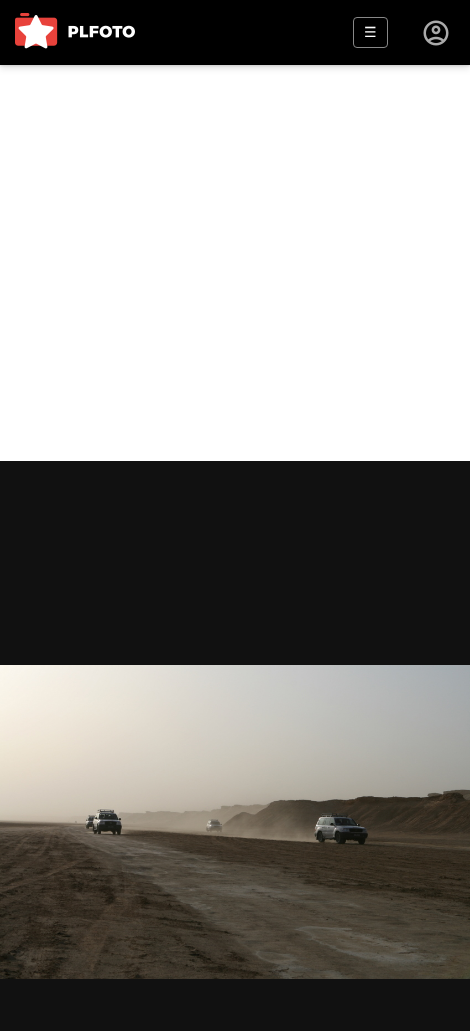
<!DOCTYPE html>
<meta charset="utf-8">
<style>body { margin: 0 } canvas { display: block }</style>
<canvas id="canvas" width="470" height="1031"></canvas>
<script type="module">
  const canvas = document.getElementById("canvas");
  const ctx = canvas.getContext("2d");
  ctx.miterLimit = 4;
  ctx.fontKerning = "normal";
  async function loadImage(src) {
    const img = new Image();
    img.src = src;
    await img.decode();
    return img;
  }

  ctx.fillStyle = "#ffffff";
  ctx.fillRect(0, 0, 470, 1031);
  ctx.fillStyle = "rgba(0, 0, 0, 0.11)";
  ctx.filter = "blur(1px)";
  ctx.beginPath();
  ctx.rect(0, 1, 470, 65);
  ctx.fill();
  ctx.filter = "none";
  ctx.fillStyle = "rgba(0, 0, 0, 0.13)";
  ctx.filter = "blur(3.5px)";
  ctx.beginPath();
  ctx.rect(0, 3, 470, 65);
  ctx.fill();
  ctx.filter = "none";
  ctx.fillStyle = "#000000";
  ctx.fillRect(0, 0, 470, 65);
  ctx.drawImage(await loadImage("img1.png"), 15, 13, 120, 36);
  ctx.beginPath();
  ctx.roundRect(353.5, 17.5, 34, 30, 3.5);
  ctx.strokeStyle = "#888888";
  ctx.stroke();
  ctx.font = "14px DejaVu Sans";
  ctx.fillStyle = "#ffffff";
  ctx.fillText("☰", 364, 37);
  ctx.drawImage(await loadImage("img2.png"), 423, 20, 26, 26);
  ctx.fillStyle = "#111111";
  ctx.fillRect(0, 461, 470, 570);
  ctx.drawImage(await loadImage("img3.png"), 0, 665, 470, 314);
</script>
